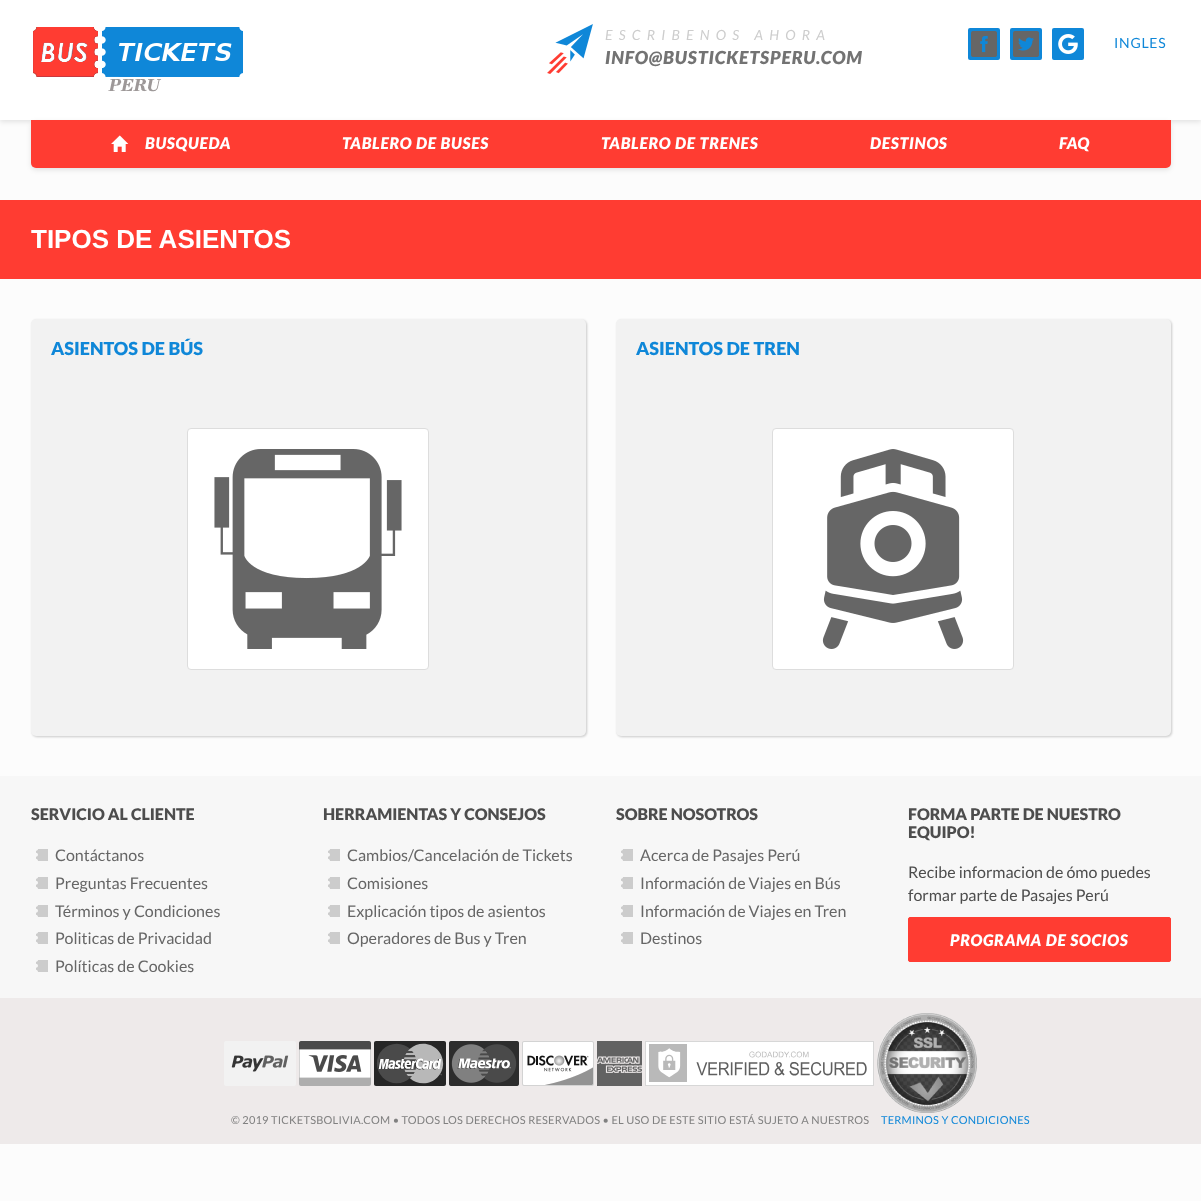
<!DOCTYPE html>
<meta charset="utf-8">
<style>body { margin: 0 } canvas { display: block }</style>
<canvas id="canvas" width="1201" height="1201"></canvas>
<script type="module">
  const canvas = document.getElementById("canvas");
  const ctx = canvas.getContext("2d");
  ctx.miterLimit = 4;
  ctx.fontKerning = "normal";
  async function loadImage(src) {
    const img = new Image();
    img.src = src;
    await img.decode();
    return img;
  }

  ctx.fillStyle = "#fcfcfc";
  ctx.fillRect(0, 0, 1201, 1201);
  ctx.fillStyle = "rgba(0, 0, 0, 0.1)";
  ctx.filter = "blur(2.5px)";
  ctx.beginPath();
  ctx.rect(0, 2, 1201, 120);
  ctx.fill();
  ctx.filter = "none";
  ctx.fillStyle = "#ffffff";
  ctx.fillRect(0, 0, 1201, 120);
  ctx.drawImage(await loadImage("img1.png"), 33, 27, 210, 65);
  ctx.drawImage(await loadImage("img2.png"), 547, 24, 46, 50);
  ctx.letterSpacing = "6.25px";
  ctx.font = "italic 14px Lato";
  ctx.fillStyle = "#cdcdcd";
  ctx.fillText("ESCRIBENOS AHORA", 605, 40);
  ctx.letterSpacing = "0.9px";
  ctx.font = "italic 900 18px Lato";
  ctx.fillStyle = "#737373";
  ctx.fillText("INFO@BUSTICKETSPERU.COM", 605, 64);
  ctx.fillStyle = "#0f87d8";
  ctx.beginPath();
  ctx.roundRect(968, 28, 32, 32, 2);
  ctx.fill();
  ctx.drawImage(await loadImage("img3.png"), 971, 31, 26, 26);
  ctx.beginPath();
  ctx.roundRect(1010, 28, 32, 32, 2);
  ctx.fill();
  ctx.drawImage(await loadImage("img4.png"), 1013, 31, 26, 26);
  ctx.beginPath();
  ctx.roundRect(1052, 28, 32, 32, 2);
  ctx.fill();
  ctx.drawImage(await loadImage("img5.png"), 1058, 34, 20, 20);
  ctx.letterSpacing = "0.75px";
  ctx.font = "14px Lato";
  ctx.fillText("INGLES", 1114, 48);
  ctx.fillStyle = "rgba(0, 0, 0, 0.1)";
  ctx.filter = "blur(2.5px)";
  ctx.beginPath();
  ctx.roundRect(31, 122, 1140, 48, 5);
  ctx.fill();
  ctx.filter = "none";
  ctx.fillStyle = "#ff3c32";
  ctx.beginPath();
  ctx.roundRect(31, 120, 1140, 48, [0, 0, 5, 5]);
  ctx.fill();
  ctx.drawImage(await loadImage("img6.png"), 111, 135, 18, 17);
  ctx.font = "italic 900 16px Lato";
  ctx.fillStyle = "#ffffff";
  ctx.fillText("BUSQUEDA", 145, 149);
  ctx.fillText("TABLERO DE BUSES", 342, 149);
  ctx.fillText("TABLERO DE TRENES", 601, 149);
  ctx.fillText("DESTINOS", 870, 149);
  ctx.fillText("FAQ", 1059, 149);
  ctx.fillStyle = "#ff3c32";
  ctx.fillRect(0, 200, 1201, 79);
  ctx.letterSpacing = "0px";
  ctx.font = "bold 26px Liberation Sans";
  ctx.fillStyle = "#ffffff";
  ctx.fillText("TIPOS DE ASIENTOS", 31, 248);
  ctx.fillStyle = "rgba(0, 0, 0, 0.2)";
  ctx.filter = "blur(1px)";
  ctx.beginPath();
  ctx.roundRect(32, 320, 555, 417, 5);
  ctx.fill();
  ctx.filter = "none";
  ctx.fillStyle = "#f2f2f2";
  ctx.beginPath();
  ctx.roundRect(31, 319, 555, 417, 5);
  ctx.fill();
  ctx.font = "900 18px Lato";
  ctx.fillStyle = "#0f87d8";
  ctx.fillText("ASIENTOS DE BÚS", 51, 355);
  ctx.fillStyle = "#ffffff";
  ctx.beginPath();
  ctx.roundRect(187.5, 428.5, 241, 241, 3.5);
  ctx.fill();
  ctx.strokeStyle = "#dddddd";
  ctx.stroke();
  ctx.drawImage(await loadImage("img7.png"), 214, 449, 188, 200);
  ctx.fillStyle = "rgba(0, 0, 0, 0.2)";
  ctx.filter = "blur(1px)";
  ctx.beginPath();
  ctx.roundRect(617, 320, 555, 417, 5);
  ctx.fill();
  ctx.filter = "none";
  ctx.fillStyle = "#f2f2f2";
  ctx.beginPath();
  ctx.roundRect(616, 319, 555, 417, 5);
  ctx.fill();
  ctx.fillStyle = "#0f87d8";
  ctx.fillText("ASIENTOS DE TREN", 636, 355);
  ctx.fillStyle = "#ffffff";
  ctx.beginPath();
  ctx.roundRect(772.5, 428.5, 241, 241, 3.5);
  ctx.fill();
  ctx.stroke();
  ctx.drawImage(await loadImage("img8.png"), 822, 449, 142, 200);
  ctx.fillStyle = "#f7f7f7";
  ctx.fillRect(0, 776, 1201, 222);
  ctx.font = "900 16px Lato";
  ctx.fillStyle = "#4d4d4d";
  ctx.fillText("SERVICIO AL CLIENTE", 31, 820);
  ctx.drawImage(await loadImage("img9.png"), 36, 849, 12, 12);
  ctx.font = "16px Lato";
  ctx.fillStyle = "#666666";
  ctx.fillText("Contáctanos", 55, 861);
  ctx.drawImage(await loadImage("img9.png"), 36, 877, 12, 12);
  ctx.fillText("Preguntas Frecuentes", 55, 889);
  ctx.drawImage(await loadImage("img9.png"), 36, 905, 12, 12);
  ctx.fillText("Términos y Condiciones", 55, 917);
  ctx.drawImage(await loadImage("img9.png"), 36, 932, 12, 12);
  ctx.fillText("Politicas de Privacidad", 55, 944);
  ctx.drawImage(await loadImage("img9.png"), 36, 960, 12, 12);
  ctx.fillText("Políticas de Cookies", 55, 972);
  ctx.font = "900 16px Lato";
  ctx.fillStyle = "#4d4d4d";
  ctx.fillText("HERRAMIENTAS Y CONSEJOS", 323, 820);
  ctx.drawImage(await loadImage("img9.png"), 328, 849, 12, 12);
  ctx.font = "16px Lato";
  ctx.fillStyle = "#666666";
  ctx.fillText("Cambios/Cancelación de Tickets", 347, 861);
  ctx.drawImage(await loadImage("img9.png"), 328, 877, 12, 12);
  ctx.fillText("Comisiones", 347, 889);
  ctx.drawImage(await loadImage("img9.png"), 328, 905, 12, 12);
  ctx.fillText("Explicación tipos de asientos", 347, 917);
  ctx.drawImage(await loadImage("img9.png"), 328, 932, 12, 12);
  ctx.fillText("Operadores de Bus y Tren", 347, 944);
  ctx.font = "900 16px Lato";
  ctx.fillStyle = "#4d4d4d";
  ctx.fillText("SOBRE NOSOTROS", 616, 820);
  ctx.drawImage(await loadImage("img9.png"), 621, 849, 12, 12);
  ctx.font = "16px Lato";
  ctx.fillStyle = "#666666";
  ctx.fillText("Acerca de Pasajes Perú", 640, 861);
  ctx.drawImage(await loadImage("img9.png"), 621, 877, 12, 12);
  ctx.fillText("Información de Viajes en Bús", 640, 889);
  ctx.drawImage(await loadImage("img9.png"), 621, 905, 12, 12);
  ctx.fillText("Información de Viajes en Tren", 640, 917);
  ctx.drawImage(await loadImage("img9.png"), 621, 932, 12, 12);
  ctx.fillText("Destinos", 640, 944);
  ctx.font = "900 16px Lato";
  ctx.fillStyle = "#4d4d4d";
  ctx.fillText("FORMA PARTE DE NUESTRO", 908, 820);
  ctx.fillText("EQUIPO!", 908, 838);
  ctx.font = "16px Lato";
  ctx.fillText("Recibe informacion de ómo puedes", 908, 878);
  ctx.fillText("formar parte de Pasajes Perú", 908, 901);
  ctx.fillStyle = "#ff3c32";
  ctx.beginPath();
  ctx.roundRect(908.5, 917.5, 262, 44, 1.5);
  ctx.fill();
  ctx.strokeStyle = "#ff3c32";
  ctx.stroke();
  ctx.letterSpacing = "0.75px";
  ctx.font = "italic 900 16px Lato";
  ctx.fillStyle = "#ffffff";
  ctx.fillText("PROGRAMA DE SOCIOS", 950, 946);
  ctx.fillStyle = "#eeeaea";
  ctx.fillRect(0, 998, 1201, 146);
  ctx.drawImage(await loadImage("img10.png"), 224, 1041, 72, 45);
  ctx.drawImage(await loadImage("img11.png"), 299, 1041, 72, 45);
  ctx.drawImage(await loadImage("img12.png"), 374, 1041, 72, 45);
  ctx.drawImage(await loadImage("img13.png"), 449, 1041, 70, 45);
  ctx.drawImage(await loadImage("img14.png"), 522, 1041, 72, 45);
  ctx.drawImage(await loadImage("img15.png"), 597, 1041, 45, 45);
  ctx.drawImage(await loadImage("img16.png"), 645, 1041, 229, 45);
  ctx.drawImage(await loadImage("img17.png"), 877, 1013, 100, 100);
  ctx.letterSpacing = "0.22px";
  ctx.font = "11px Lato";
  ctx.fillStyle = "#808080";
  ctx.fillText("© 2019 TICKETSBOLIVIA.COM • TODOS LOS DERECHOS RESERVADOS • EL USO DE ESTE SITIO ESTÁ SUJETO A NUESTROS", 231, 1124);
  ctx.fillStyle = "#0f87d8";
  ctx.fillText("TERMINOS Y CONDICIONES", 881, 1124);
</script>
